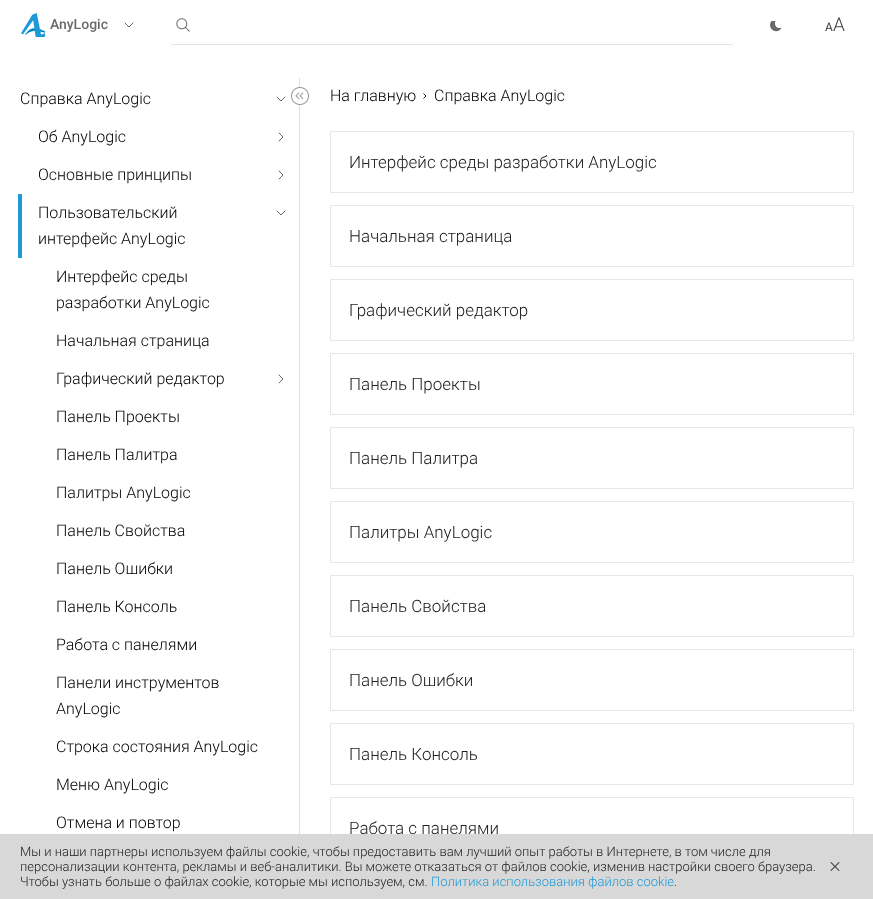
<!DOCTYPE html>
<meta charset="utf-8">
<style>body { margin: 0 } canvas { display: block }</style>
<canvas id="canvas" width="873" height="899"></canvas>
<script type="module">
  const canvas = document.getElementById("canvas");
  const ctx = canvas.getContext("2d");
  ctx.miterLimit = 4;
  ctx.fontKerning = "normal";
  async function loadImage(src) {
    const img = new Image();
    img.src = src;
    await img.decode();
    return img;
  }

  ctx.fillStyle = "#ffffff";
  ctx.fillRect(0, 0, 873, 899);
  ctx.drawImage(await loadImage("img1.png"), 21, 13, 24, 24);
  ctx.font = "500 14px Roboto";
  ctx.fillStyle = "#6a6a6a";
  ctx.fillText("AnyLogic", 50, 29);
  ctx.beginPath();
  ctx.moveTo(133, 23);
  ctx.lineTo(129, 27);
  ctx.lineTo(125, 23);
  ctx.strokeStyle = "#6a6a6a";
  ctx.lineCap = "round";
  ctx.lineJoin = "round";
  ctx.stroke();
  ctx.drawImage(await loadImage("img2.png"), 176, 18, 14, 14);
  ctx.fillStyle = "#e5e4e4";
  ctx.fillRect(171, 44, 562, 1);
  ctx.drawImage(await loadImage("img3.png"), 770, 21, 12, 11);
  ctx.drawImage(await loadImage("img4.png"), 825, 17, 20, 14);
  ctx.fillStyle = "#dedede";
  ctx.fillRect(299, 78, 1, 756);
  ctx.font = "300 16px Roboto";
  ctx.fillStyle = "#000000";
  ctx.fillText("Справка AnyLogic", 20, 104);
  ctx.beginPath();
  ctx.moveTo(285, 97);
  ctx.lineTo(281, 101);
  ctx.lineTo(277, 97);
  ctx.stroke();
  ctx.fillText("Об AnyLogic", 38, 142);
  ctx.beginPath();
  ctx.moveTo(279, 133);
  ctx.lineTo(283, 137);
  ctx.lineTo(279, 141);
  ctx.stroke();
  ctx.fillText("Основные принципы", 38, 180);
  ctx.beginPath();
  ctx.moveTo(279, 171);
  ctx.lineTo(283, 175);
  ctx.lineTo(279, 179);
  ctx.stroke();
  ctx.fillStyle = "#1c9ad7";
  ctx.fillRect(18, 194, 4, 64);
  ctx.fillStyle = "#000000";
  ctx.fillText("Пользовательский", 38, 218);
  ctx.fillText("интерфейс AnyLogic", 38, 244);
  ctx.beginPath();
  ctx.moveTo(285, 211);
  ctx.lineTo(281, 215);
  ctx.lineTo(277, 211);
  ctx.stroke();
  ctx.fillText("Интерфейс среды", 56, 282);
  ctx.fillText("разработки AnyLogic", 56, 308);
  ctx.fillText("Начальная страница", 56, 346);
  ctx.fillText("Графический редактор", 56, 384);
  ctx.beginPath();
  ctx.moveTo(279, 375);
  ctx.lineTo(283, 379);
  ctx.lineTo(279, 383);
  ctx.stroke();
  ctx.fillText("Панель Проекты", 56, 422);
  ctx.fillText("Панель Палитра", 56, 460);
  ctx.fillText("Палитры AnyLogic", 56, 498);
  ctx.fillText("Панель Свойства", 56, 536);
  ctx.fillText("Панель Ошибки", 56, 574);
  ctx.fillText("Панель Консоль", 56, 612);
  ctx.fillText("Работа с панелями", 56, 650);
  ctx.fillText("Панели инструментов", 56, 688);
  ctx.fillText("AnyLogic", 56, 714);
  ctx.fillText("Строка состояния AnyLogic", 56, 752);
  ctx.fillText("Меню AnyLogic", 56, 790);
  ctx.fillText("Отмена и повтор", 56, 828);
  ctx.drawImage(await loadImage("img5.png"), 291, 87, 18, 18);
  ctx.fillText("На главную", 330, 101);
  ctx.beginPath();
  ctx.moveTo(423.5, 98.5);
  ctx.lineTo(426, 96);
  ctx.lineTo(423.5, 93.5);
  ctx.strokeStyle = "#212121";
  ctx.lineCap = "butt";
  ctx.lineJoin = "miter";
  ctx.stroke();
  ctx.fillText("Справка AnyLogic", 434, 101);
  ctx.strokeStyle = "#e6e6e6";
  ctx.strokeRect(330.5, 131.5, 523, 61);
  ctx.font = "300 17px Roboto";
  ctx.fillStyle = "#212121";
  ctx.fillText("Интерфейс среды разработки AnyLogic", 349, 168);
  ctx.strokeRect(330.5, 205.5, 523, 61);
  ctx.fillText("Начальная страница", 349, 242);
  ctx.strokeRect(330.5, 279.5, 523, 61);
  ctx.fillText("Графический редактор", 349, 316);
  ctx.strokeRect(330.5, 353.5, 523, 61);
  ctx.fillText("Панель Проекты", 349, 390);
  ctx.strokeRect(330.5, 427.5, 523, 61);
  ctx.fillText("Панель Палитра", 349, 464);
  ctx.strokeRect(330.5, 501.5, 523, 61);
  ctx.fillText("Палитры AnyLogic", 349, 538);
  ctx.strokeRect(330.5, 575.5, 523, 61);
  ctx.fillText("Панель Свойства", 349, 612);
  ctx.strokeRect(330.5, 649.5, 523, 61);
  ctx.fillText("Панель Ошибки", 349, 686);
  ctx.strokeRect(330.5, 723.5, 523, 61);
  ctx.fillText("Панель Консоль", 349, 760);
  ctx.strokeRect(330.5, 797.5, 523, 61);
  ctx.fillText("Работа с панелями", 349, 834);
  ctx.fillStyle = "#d8d8d8";
  ctx.fillRect(0, 834, 873, 65);
  ctx.font = "300 13px Roboto";
  ctx.fillStyle = "#212121";
  ctx.fillText("Мы и наши партнеры используем файлы cookie, чтобы предоставить вам лучший опыт работы в Интернете, в том числе для", 20, 856);
  ctx.fillText("персонализации контента, рекламы и веб-аналитики. Вы можете отказаться от файлов cookie, изменив настройки своего браузера.", 20, 871);
  ctx.fillText("Чтобы узнать больше о файлах cookie, которые мы используем, см.", 20, 886);
  ctx.fillStyle = "#1c9ad7";
  ctx.fillText("Политика использования файлов cookie", 431, 886);
  ctx.fillStyle = "#212121";
  ctx.fillText(".", 674, 886);
  ctx.drawImage(await loadImage("img6.png"), 830, 862, 10, 9);
</script>
